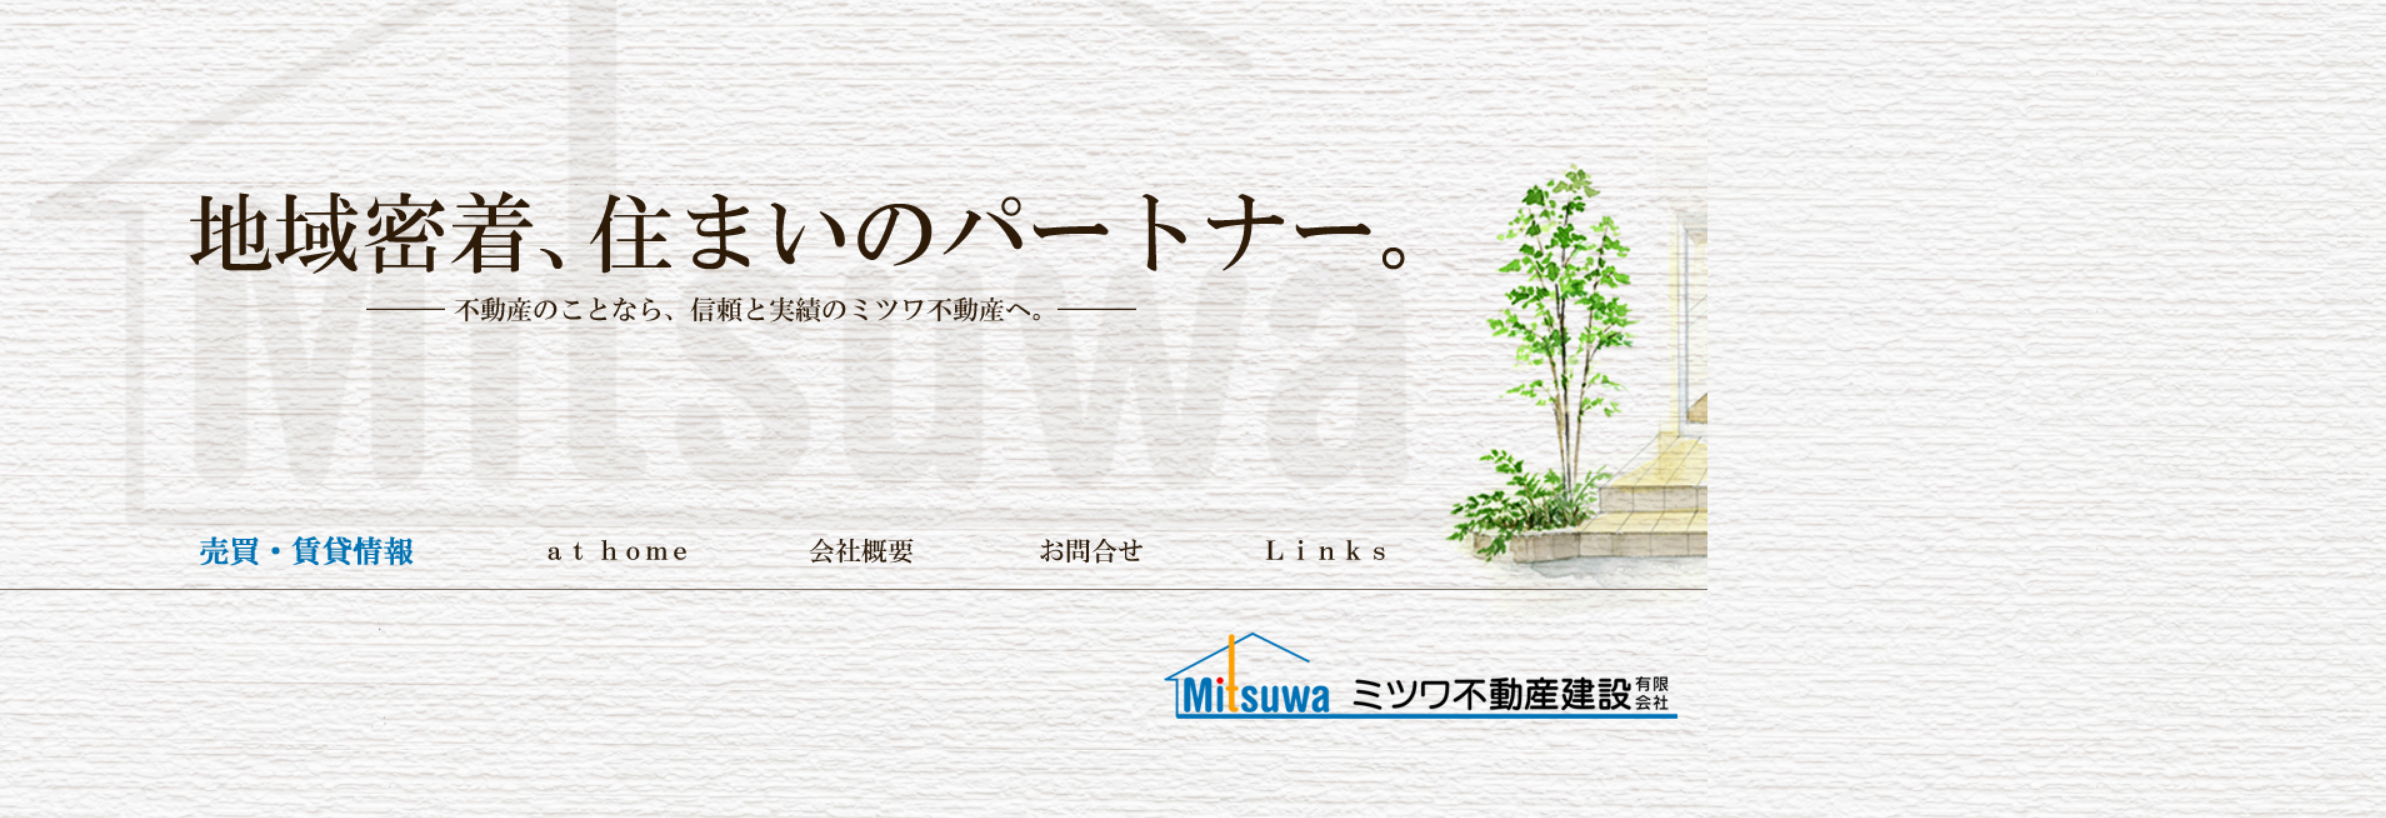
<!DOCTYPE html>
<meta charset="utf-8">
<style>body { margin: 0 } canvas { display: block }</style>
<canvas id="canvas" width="2386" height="818"></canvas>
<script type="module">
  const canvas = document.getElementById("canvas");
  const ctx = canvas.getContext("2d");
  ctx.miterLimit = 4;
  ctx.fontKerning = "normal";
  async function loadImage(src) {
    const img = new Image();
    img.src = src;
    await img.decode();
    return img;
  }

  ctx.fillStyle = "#ffffff";
  ctx.fillRect(0, 0, 2386, 818);
  ctx.drawImage(await loadImage("img1.png"), 0, 0, 2386, 818);
  ctx.drawImage(await loadImage("img2.png"), 0, 0, 1708, 750);
</script>
